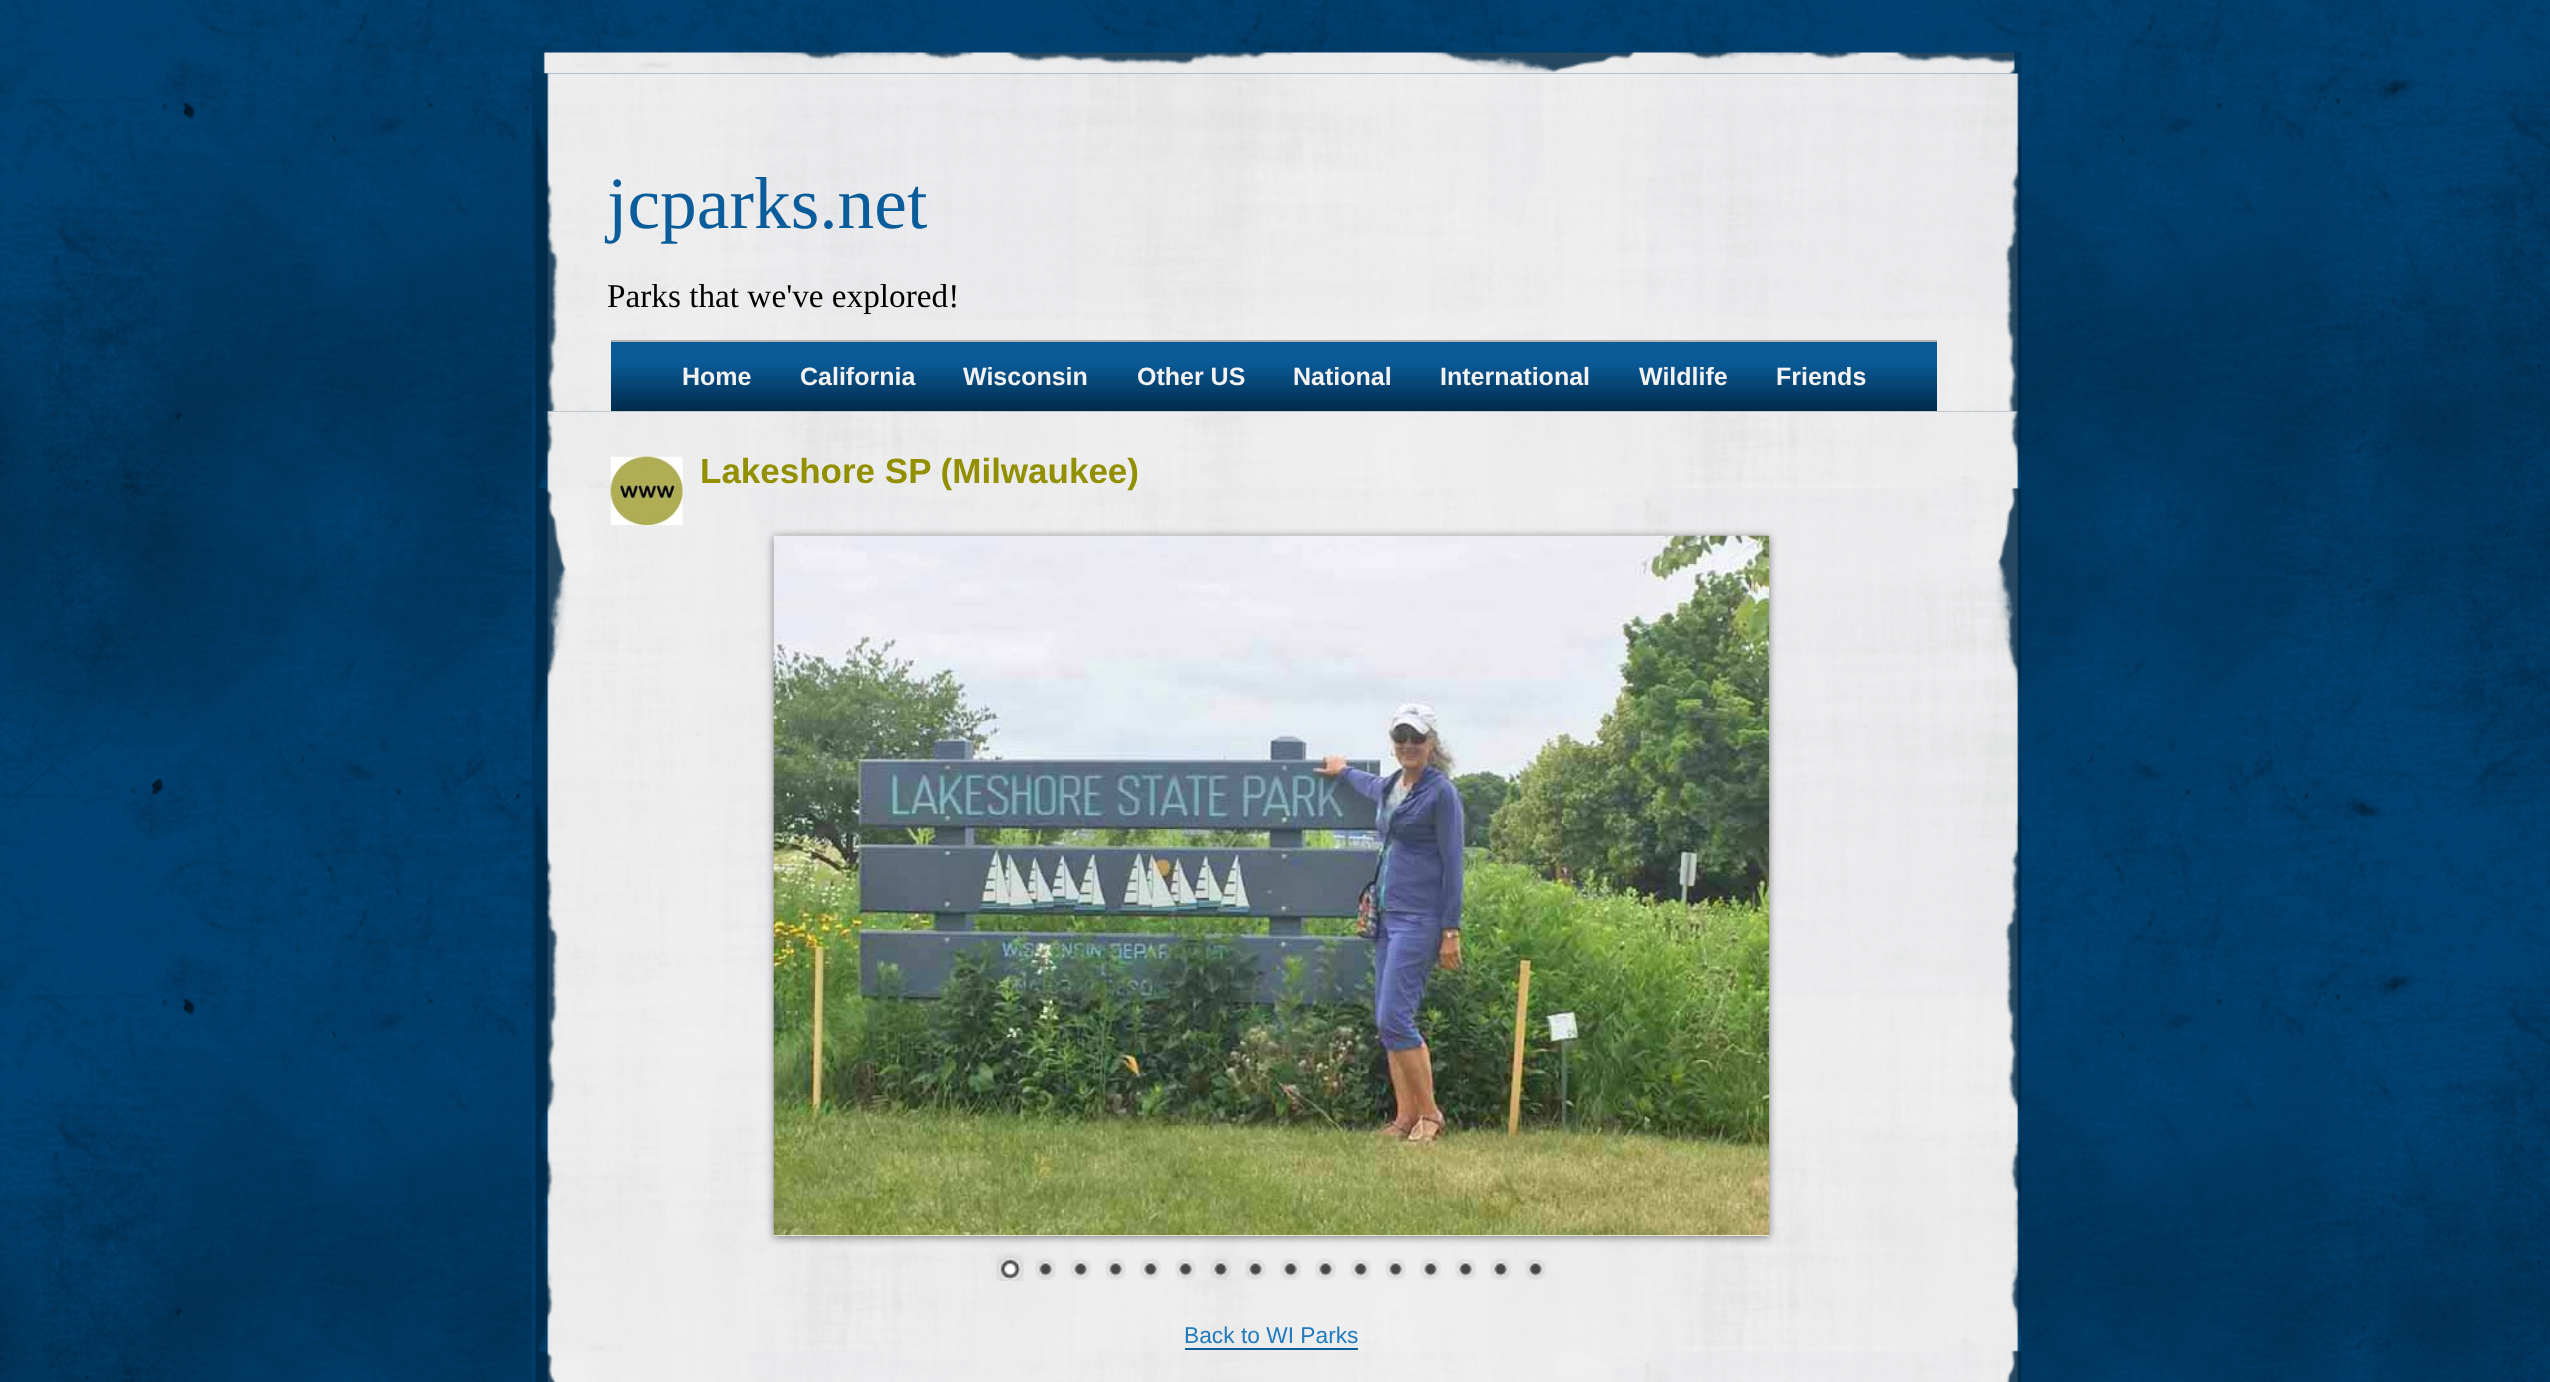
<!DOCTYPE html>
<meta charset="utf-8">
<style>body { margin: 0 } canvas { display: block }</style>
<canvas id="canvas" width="2550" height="1382"></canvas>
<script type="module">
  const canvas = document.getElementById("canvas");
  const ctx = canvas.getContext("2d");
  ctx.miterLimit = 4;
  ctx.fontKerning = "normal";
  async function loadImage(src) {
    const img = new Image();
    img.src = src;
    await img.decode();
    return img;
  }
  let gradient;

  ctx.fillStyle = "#ffffff";
  ctx.fillRect(0, 0, 2550, 1382);
  ctx.drawImage(await loadImage("img1.png"), 0, 0, 2550, 1382);
  ctx.drawImage(await loadImage("img2.png"), 532, 52, 1490, 22);
  ctx.drawImage(await loadImage("img3.png"), 532, 73, 1490, 339);
  ctx.font = "73.5px Liberation Serif";
  ctx.fillStyle = "#0a5d9a";
  ctx.fillText("jcparks.net", 607, 228);
  ctx.font = "33.25px Liberation Serif";
  ctx.fillStyle = "#000000";
  ctx.fillText("Parks that we've explored!", 607, 307);
  gradient = ctx.createLinearGradient(611, 411, 611, 341);
  gradient.addColorStop(0, "#002b4a");
  gradient.addColorStop(0.69, "#0a5a97");
  ctx.fillStyle = gradient;
  ctx.fillRect(611, 342, 1326, 69);
  ctx.fillStyle = "#b2b2b2";
  ctx.fillRect(611, 340, 1326, 2);
  ctx.font = "bold 25px Liberation Sans";
  ctx.fillStyle = "#f2f2f2";
  ctx.fillText("Home", 682, 385);
  ctx.fillText("California", 800, 385);
  ctx.fillText("Wisconsin", 963, 385);
  ctx.fillText("Other US", 1137, 385);
  ctx.fillText("National", 1293, 385);
  ctx.fillText("International", 1440, 385);
  ctx.fillText("Wildlife", 1639, 385);
  ctx.fillText("Friends", 1776, 385);
  ctx.drawImage(await loadImage("img4.png"), 532, 411, 1490, 971);
  ctx.drawImage(await loadImage("img5.png"), 610, 456, 73, 69);
  ctx.font = "bold 35px Liberation Sans";
  ctx.fillStyle = "#929000";
  ctx.fillText("Lakeshore SP (Milwaukee)", 700, 483);
  ctx.fillStyle = "rgba(0, 0, 0, 0.5)";
  ctx.filter = "blur(4.5px)";
  ctx.beginPath();
  ctx.rect(774, 537, 995, 700);
  ctx.fill();
  ctx.filter = "none";
  ctx.fillStyle = "#ffffff";
  ctx.fillRect(774, 1235, 995, 1);
  ctx.drawImage(await loadImage("img6.png"), 773, 535, 997, 701);
  ctx.drawImage(await loadImage("img7.png"), 996, 1253, 28, 28);
  ctx.drawImage(await loadImage("img8.png"), 1035, 1258, 21, 22);
  ctx.drawImage(await loadImage("img9.png"), 1070, 1258, 21, 22);
  ctx.drawImage(await loadImage("img10.png"), 1105, 1258, 21, 22);
  ctx.drawImage(await loadImage("img11.png"), 1140, 1258, 21, 22);
  ctx.drawImage(await loadImage("img12.png"), 1175, 1258, 21, 22);
  ctx.drawImage(await loadImage("img13.png"), 1210, 1258, 21, 22);
  ctx.drawImage(await loadImage("img14.png"), 1245, 1258, 21, 22);
  ctx.drawImage(await loadImage("img15.png"), 1280, 1258, 21, 22);
  ctx.drawImage(await loadImage("img16.png"), 1315, 1258, 21, 22);
  ctx.drawImage(await loadImage("img17.png"), 1350, 1258, 21, 22);
  ctx.drawImage(await loadImage("img18.png"), 1385, 1258, 21, 22);
  ctx.drawImage(await loadImage("img19.png"), 1420, 1258, 21, 22);
  ctx.drawImage(await loadImage("img20.png"), 1455, 1258, 21, 22);
  ctx.drawImage(await loadImage("img21.png"), 1490, 1258, 21, 22);
  ctx.drawImage(await loadImage("img22.png"), 1525, 1258, 21, 22);
  ctx.font = "22.75px Liberation Sans";
  ctx.fillStyle = "#217bbd";
  ctx.fillText("Back to WI Parks", 1184, 1343);
  ctx.fillStyle = "#0a5e9a";
  ctx.fillRect(1185, 1348, 173, 2);
</script>
